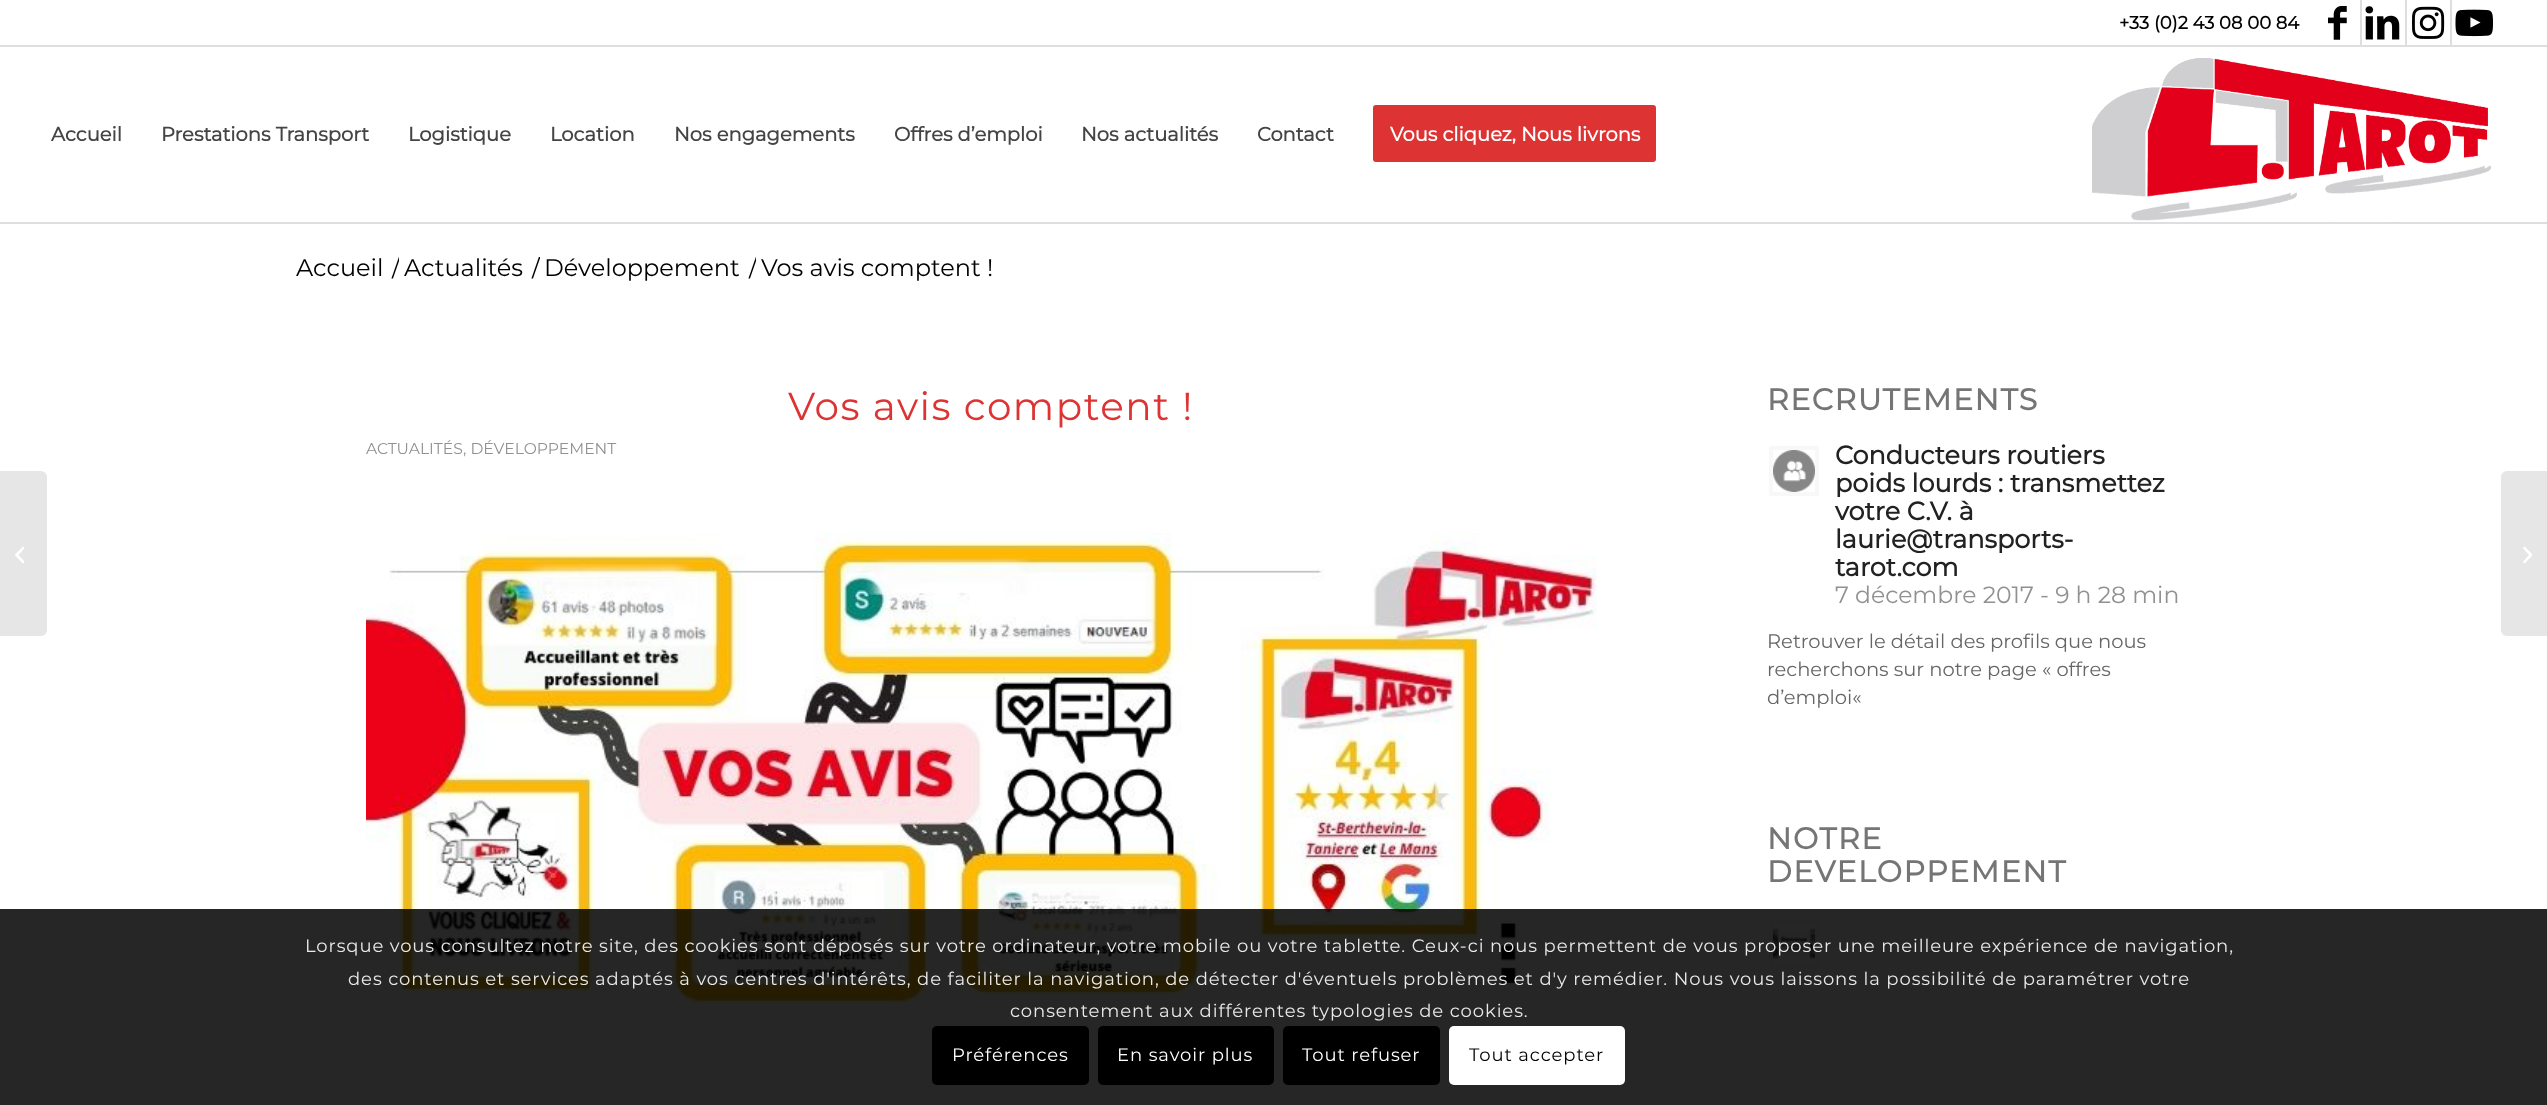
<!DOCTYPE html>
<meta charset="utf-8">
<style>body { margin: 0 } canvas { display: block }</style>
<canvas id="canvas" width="2547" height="1105"></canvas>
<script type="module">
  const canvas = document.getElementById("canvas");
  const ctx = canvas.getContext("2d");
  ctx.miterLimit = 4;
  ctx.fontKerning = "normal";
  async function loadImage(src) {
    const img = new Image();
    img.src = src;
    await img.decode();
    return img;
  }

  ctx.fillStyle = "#ffffff";
  ctx.fillRect(0, 0, 2547, 1105);
  ctx.fillStyle = "#e6e6e6";
  ctx.beginPath();
  ctx.roundRect(0, 471, 47, 165, [0, 6, 6, 0]);
  ctx.fill();
  ctx.drawImage(await loadImage("img1.png"), 15, 546, 9, 18);
  ctx.fillStyle = "#e0dde0";
  ctx.fillRect(0, 45, 2547, 2);
  ctx.font = "bold 18px Montserrat";
  ctx.fillStyle = "#000000";
  ctx.fillText("+33 (0)2 43 08 00 84", 2119, 29);
  ctx.fillStyle = "#e0dde0";
  ctx.fillRect(2360, 0, 2, 45);
  ctx.drawImage(await loadImage("img2.png"), 2328, 6, 19, 34);
  ctx.fillRect(2405, 0, 2, 45);
  ctx.drawImage(await loadImage("img3.png"), 2365, 6, 35, 34);
  ctx.fillRect(2450, 0, 2, 45);
  ctx.drawImage(await loadImage("img4.png"), 2412, 6, 33, 33);
  ctx.drawImage(await loadImage("img5.png"), 2455, 9, 38, 28);
  ctx.fillRect(0, 222, 2547, 2);
  ctx.font = "bold 19.5px Montserrat";
  ctx.fillStyle = "#444444";
  ctx.fillText("Accueil", 51, 141);
  ctx.fillText("Prestations Transport", 161, 141);
  ctx.fillText("Logistique", 408, 141);
  ctx.fillText("Location", 550, 141);
  ctx.fillText("Nos engagements", 674, 141);
  ctx.fillText("Offres d’emploi", 894, 141);
  ctx.fillText("Nos actualités", 1081, 141);
  ctx.fillText("Contact", 1257, 141);
  ctx.fillStyle = "#dd3333";
  ctx.beginPath();
  ctx.roundRect(1374.5, 106.5, 280, 54, 1.5);
  ctx.fill();
  ctx.strokeStyle = "#dd3333";
  ctx.lineWidth = 3;
  ctx.stroke();
  ctx.fillStyle = "#ffffff";
  ctx.fillText("Vous cliquez, Nous livrons", 1390, 141);
  ctx.drawImage(await loadImage("img6.png"), 2092, 58, 399, 163);
  ctx.font = "100 24px Montserrat";
  ctx.fillStyle = "#000000";
  ctx.fillText("Accueil", 296, 276);
  ctx.save();
  ctx.beginPath();
  ctx.rect(387, 257, 12, 22);
  ctx.clip();
  ctx.fillText("/", 392, 276);
  ctx.restore();
  ctx.fillText("Actualités", 404, 276);
  ctx.save();
  ctx.beginPath();
  ctx.rect(528, 257, 12, 22);
  ctx.clip();
  ctx.fillText("/", 532, 276);
  ctx.restore();
  ctx.fillText("Développement", 544, 276);
  ctx.save();
  ctx.beginPath();
  ctx.rect(744, 257, 12, 22);
  ctx.clip();
  ctx.fillText("/", 749, 276);
  ctx.restore();
  ctx.fillText("Vos avis comptent !", 761, 276);
  ctx.letterSpacing = "1.5px";
  ctx.font = "100 39px Montserrat";
  ctx.fillStyle = "#dd3333";
  ctx.fillText("Vos avis comptent !", 788, 420);
  ctx.letterSpacing = "0px";
  ctx.font = "100 15.6px Montserrat";
  ctx.fillStyle = "#919191";
  ctx.fillText("ACTUALITÉS, DÉVELOPPEMENT", 366, 454);
  ctx.drawImage(await loadImage("img7.png"), 366, 533, 1231, 474);
  ctx.letterSpacing = "1.5px";
  ctx.font = "bold 30px Montserrat";
  ctx.fillStyle = "#757575";
  ctx.fillText("RECRUTEMENTS", 1767, 410);
  ctx.fillStyle = "#f8f8f8";
  ctx.fillRect(1769, 446, 50, 50);
  ctx.drawImage(await loadImage("img8.png"), 1773, 450, 42, 42);
  ctx.letterSpacing = "0px";
  ctx.font = "bold 25.5px Montserrat";
  ctx.fillStyle = "#222222";
  ctx.fillText("Conducteurs routiers", 1835, 464);
  ctx.fillText("poids lourds : transmettez", 1835, 492);
  ctx.fillText("votre C.V. à", 1835, 520);
  ctx.fillText("laurie@transports-", 1835, 548);
  ctx.fillText("tarot.com", 1835, 576);
  ctx.font = "100 23.5px Montserrat";
  ctx.fillStyle = "#919191";
  ctx.fillText("7 décembre 2017 - 9 h 28 min", 1835, 603);
  ctx.font = "100 19.5px Montserrat";
  ctx.fillStyle = "#666666";
  ctx.fillText("Retrouver le détail des profils que nous", 1767, 648);
  ctx.fillText("recherchons sur notre page « offres", 1767, 676);
  ctx.fillText("d’emploi«", 1767, 704);
  ctx.letterSpacing = "1.5px";
  ctx.font = "bold 30px Montserrat";
  ctx.fillStyle = "#757575";
  ctx.fillText("NOTRE", 1767, 849);
  ctx.fillText("DEVELOPPEMENT", 1767, 882);
  ctx.fillStyle = "#f8f8f8";
  ctx.fillRect(1769, 919, 50, 50);
  ctx.drawImage(await loadImage("img9.png"), 1773, 923, 42, 41);
  ctx.fillStyle = "#e6e6e6";
  ctx.beginPath();
  ctx.roundRect(2501, 471, 46, 165, [6, 0, 0, 6]);
  ctx.fill();
  ctx.drawImage(await loadImage("img10.png"), 2523, 546, 9, 18);
  ctx.fillStyle = "rgba(0, 0, 0, 0.85)";
  ctx.fillRect(0, 909, 2547, 196);
  ctx.letterSpacing = "0.9px";
  ctx.font = "100 18px Montserrat";
  ctx.fillStyle = "#e9e9e9";
  ctx.fillText("Lorsque vous consultez notre site, des cookies sont déposés sur votre ordinateur, votre mobile ou votre tablette. Ceux-ci nous permettent de vous proposer une meilleure expérience de navigation,", 305, 952);
  ctx.fillText("des contenus et services adaptés à vos centres d'intérêts, de faciliter la navigation, de détecter d'éventuels problèmes et d'y remédier. Nous vous laissons la possibilité de paramétrer votre", 348, 985);
  ctx.fillText("consentement aux différentes typologies de cookies.", 1010, 1017);
  ctx.fillStyle = "#000000";
  ctx.beginPath();
  ctx.roundRect(932, 1026, 157, 59, 5);
  ctx.fill();
  ctx.fillStyle = "#ffffff";
  ctx.fillText("Préférences", 952, 1061);
  ctx.fillStyle = "#000000";
  ctx.beginPath();
  ctx.roundRect(1098, 1026, 176, 59, 5);
  ctx.fill();
  ctx.fillStyle = "#ffffff";
  ctx.fillText("En savoir plus", 1117, 1061);
  ctx.fillStyle = "#000000";
  ctx.beginPath();
  ctx.roundRect(1283, 1026, 157, 59, 5);
  ctx.fill();
  ctx.fillStyle = "#ffffff";
  ctx.fillText("Tout refuser", 1302, 1061);
  ctx.beginPath();
  ctx.roundRect(1449, 1026, 176, 59, 5);
  ctx.fill();
  ctx.fillStyle = "#000000";
  ctx.fillText("Tout accepter", 1469, 1061);
</script>
